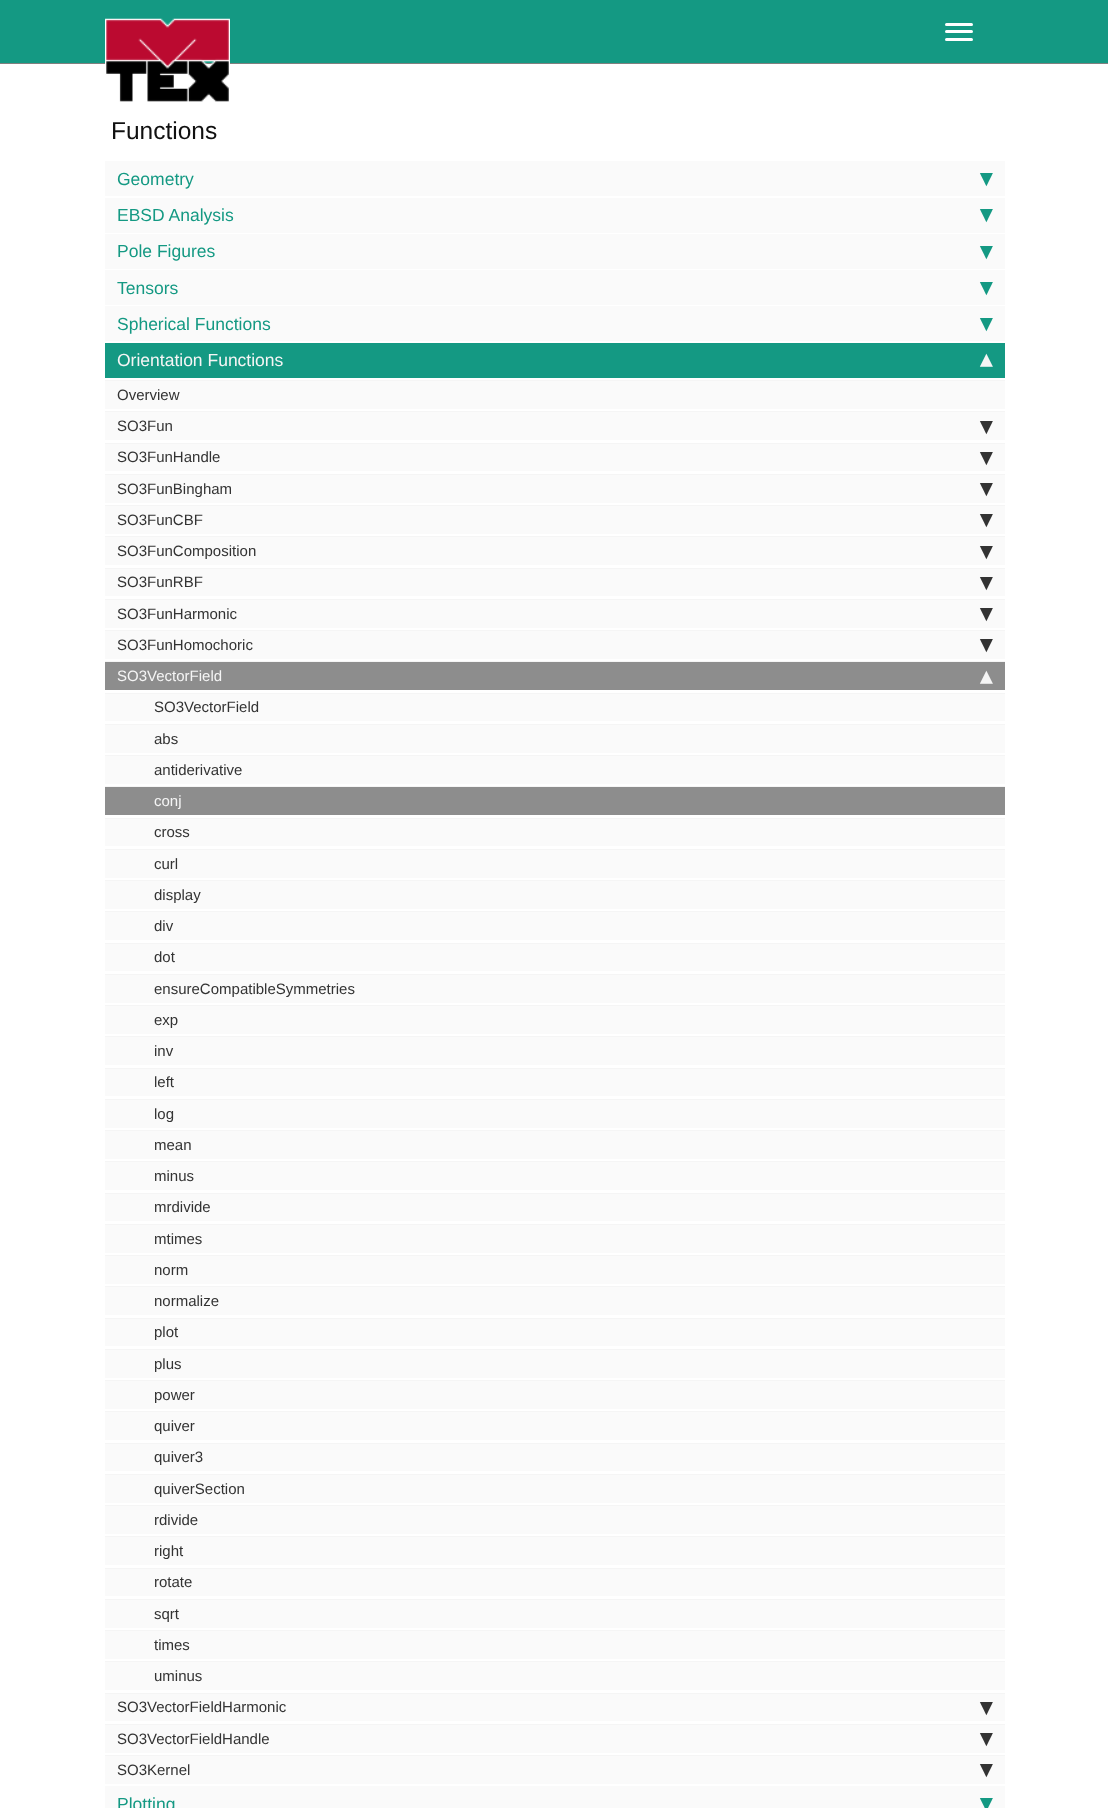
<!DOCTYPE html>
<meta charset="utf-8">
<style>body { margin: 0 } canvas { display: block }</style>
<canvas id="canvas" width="1108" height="1808"></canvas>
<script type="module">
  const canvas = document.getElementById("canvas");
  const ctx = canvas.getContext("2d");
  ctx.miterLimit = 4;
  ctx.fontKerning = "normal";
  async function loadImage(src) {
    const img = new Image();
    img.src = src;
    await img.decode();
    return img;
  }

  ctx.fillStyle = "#ffffff";
  ctx.fillRect(0, 0, 1108, 1808);
  ctx.fillStyle = "#149983";
  ctx.fillRect(0, 0, 1108, 63);
  ctx.fillStyle = "#808080";
  ctx.fillRect(0, 63, 1108, 1);
  ctx.drawImage(await loadImage("img1.png"), 105, 18, 125, 84);
  ctx.fillStyle = "#ffffff";
  ctx.beginPath();
  ctx.roundRect(945, 23, 28, 3, 1.5);
  ctx.fill();
  ctx.beginPath();
  ctx.roundRect(945, 30, 28, 3, 1.5);
  ctx.fill();
  ctx.beginPath();
  ctx.roundRect(945, 38, 28, 3, 1.5);
  ctx.fill();
  ctx.font = "24.5px Liberation Sans";
  ctx.fillStyle = "#101010";
  ctx.fillText("Functions", 111, 139);
  ctx.fillStyle = "#fafafa";
  ctx.fillRect(105, 161, 900, 35);
  ctx.font = "17.5px Liberation Sans";
  ctx.fillStyle = "#149983";
  ctx.fillText("Geometry", 117, 185);
  ctx.font = "bold 24px DejaVu Sans";
  ctx.fillText("▾", 980, 186);
  ctx.fillStyle = "#fafafa";
  ctx.fillRect(105, 198, 900, 35);
  ctx.font = "17.5px Liberation Sans";
  ctx.fillStyle = "#149983";
  ctx.fillText("EBSD Analysis", 117, 221);
  ctx.font = "bold 24px DejaVu Sans";
  ctx.fillText("▾", 980, 222);
  ctx.fillStyle = "#fafafa";
  ctx.fillRect(105, 234, 900, 35);
  ctx.font = "17.5px Liberation Sans";
  ctx.fillStyle = "#149983";
  ctx.fillText("Pole Figures", 117, 257);
  ctx.font = "bold 24px DejaVu Sans";
  ctx.fillText("▾", 980, 259);
  ctx.fillStyle = "#fafafa";
  ctx.fillRect(105, 270, 900, 35);
  ctx.font = "17.5px Liberation Sans";
  ctx.fillStyle = "#149983";
  ctx.fillText("Tensors", 117, 294);
  ctx.font = "bold 24px DejaVu Sans";
  ctx.fillText("▾", 980, 295);
  ctx.fillStyle = "#fafafa";
  ctx.fillRect(105, 306, 900, 35);
  ctx.font = "17.5px Liberation Sans";
  ctx.fillStyle = "#149983";
  ctx.fillText("Spherical Functions", 117, 330);
  ctx.font = "bold 24px DejaVu Sans";
  ctx.fillText("▾", 980, 331);
  ctx.fillRect(105, 343, 900, 35);
  ctx.font = "17.5px Liberation Sans";
  ctx.fillStyle = "#f5f5f5";
  ctx.fillText("Orientation Functions", 117, 366);
  ctx.font = "bold 24px DejaVu Sans";
  ctx.fillText("▴", 980, 367);
  ctx.fillStyle = "#fafafa";
  ctx.fillRect(105, 381, 900, 28);
  ctx.fillStyle = "#f5f5f5";
  ctx.fillRect(105, 380, 900, 1);
  ctx.font = "15px Liberation Sans";
  ctx.fillStyle = "#333333";
  ctx.fillText("Overview", 117, 400);
  ctx.fillStyle = "#fafafa";
  ctx.fillRect(105, 412, 900, 28);
  ctx.fillStyle = "#f5f5f5";
  ctx.fillRect(105, 411, 900, 1);
  ctx.fillStyle = "#333333";
  ctx.fillText("SO3Fun", 117, 431);
  ctx.font = "bold 24px DejaVu Sans";
  ctx.fillText("▾", 980, 434);
  ctx.fillStyle = "#fafafa";
  ctx.fillRect(105, 444, 900, 27);
  ctx.fillStyle = "#f5f5f5";
  ctx.fillRect(105, 443, 900, 1);
  ctx.font = "15px Liberation Sans";
  ctx.fillStyle = "#333333";
  ctx.fillText("SO3FunHandle", 117, 462);
  ctx.font = "bold 24px DejaVu Sans";
  ctx.fillText("▾", 980, 465);
  ctx.fillStyle = "#fafafa";
  ctx.fillRect(105, 475, 900, 28);
  ctx.fillStyle = "#f5f5f5";
  ctx.fillRect(105, 474, 900, 1);
  ctx.font = "15px Liberation Sans";
  ctx.fillStyle = "#333333";
  ctx.fillText("SO3FunBingham", 117, 494);
  ctx.font = "bold 24px DejaVu Sans";
  ctx.fillText("▾", 980, 496);
  ctx.fillStyle = "#fafafa";
  ctx.fillRect(105, 506, 900, 28);
  ctx.fillStyle = "#f5f5f5";
  ctx.fillRect(105, 505, 900, 1);
  ctx.font = "15px Liberation Sans";
  ctx.fillStyle = "#333333";
  ctx.fillText("SO3FunCBF", 117, 525);
  ctx.font = "bold 24px DejaVu Sans";
  ctx.fillText("▾", 980, 527);
  ctx.fillStyle = "#fafafa";
  ctx.fillRect(105, 537, 900, 28);
  ctx.fillStyle = "#f5f5f5";
  ctx.fillRect(105, 536, 900, 1);
  ctx.font = "15px Liberation Sans";
  ctx.fillStyle = "#333333";
  ctx.fillText("SO3FunComposition", 117, 556);
  ctx.font = "bold 24px DejaVu Sans";
  ctx.fillText("▾", 980, 559);
  ctx.fillStyle = "#fafafa";
  ctx.fillRect(105, 569, 900, 27);
  ctx.fillStyle = "#f5f5f5";
  ctx.fillRect(105, 568, 900, 1);
  ctx.font = "15px Liberation Sans";
  ctx.fillStyle = "#333333";
  ctx.fillText("SO3FunRBF", 117, 587);
  ctx.font = "bold 24px DejaVu Sans";
  ctx.fillText("▾", 980, 590);
  ctx.fillStyle = "#fafafa";
  ctx.fillRect(105, 600, 900, 28);
  ctx.fillStyle = "#f5f5f5";
  ctx.fillRect(105, 599, 900, 1);
  ctx.font = "15px Liberation Sans";
  ctx.fillStyle = "#333333";
  ctx.fillText("SO3FunHarmonic", 117, 619);
  ctx.font = "bold 24px DejaVu Sans";
  ctx.fillText("▾", 980, 621);
  ctx.fillStyle = "#fafafa";
  ctx.fillRect(105, 631, 900, 28);
  ctx.fillStyle = "#f5f5f5";
  ctx.fillRect(105, 630, 900, 1);
  ctx.font = "15px Liberation Sans";
  ctx.fillStyle = "#333333";
  ctx.fillText("SO3FunHomochoric", 117, 650);
  ctx.font = "bold 24px DejaVu Sans";
  ctx.fillText("▾", 980, 652);
  ctx.fillStyle = "#8d8d8d";
  ctx.fillRect(105, 662, 900, 28);
  ctx.fillStyle = "#f5f5f5";
  ctx.fillRect(105, 661, 900, 1);
  ctx.font = "15px Liberation Sans";
  ctx.fillText("SO3VectorField", 117, 681);
  ctx.font = "bold 24px DejaVu Sans";
  ctx.fillText("▴", 980, 684);
  ctx.fillStyle = "#fafafa";
  ctx.fillRect(105, 694, 900, 27);
  ctx.fillStyle = "#f5f5f5";
  ctx.fillRect(105, 693, 900, 1);
  ctx.font = "15px Liberation Sans";
  ctx.fillStyle = "#333333";
  ctx.fillText("SO3VectorField", 154, 712);
  ctx.fillStyle = "#fafafa";
  ctx.fillRect(105, 725, 900, 28);
  ctx.fillStyle = "#f5f5f5";
  ctx.fillRect(105, 724, 900, 1);
  ctx.fillStyle = "#333333";
  ctx.fillText("abs", 154, 744);
  ctx.fillStyle = "#fafafa";
  ctx.fillRect(105, 756, 900, 28);
  ctx.fillStyle = "#f5f5f5";
  ctx.fillRect(105, 755, 900, 1);
  ctx.fillStyle = "#333333";
  ctx.fillText("antiderivative", 154, 775);
  ctx.fillStyle = "#8d8d8d";
  ctx.fillRect(105, 787, 900, 28);
  ctx.fillStyle = "#f5f5f5";
  ctx.fillRect(105, 786, 900, 1);
  ctx.fillText("conj", 154, 806);
  ctx.fillStyle = "#fafafa";
  ctx.fillRect(105, 819, 900, 27);
  ctx.fillStyle = "#f5f5f5";
  ctx.fillRect(105, 818, 900, 1);
  ctx.fillStyle = "#333333";
  ctx.fillText("cross", 154, 837);
  ctx.fillStyle = "#fafafa";
  ctx.fillRect(105, 850, 900, 28);
  ctx.fillStyle = "#f5f5f5";
  ctx.fillRect(105, 849, 900, 1);
  ctx.fillStyle = "#333333";
  ctx.fillText("curl", 154, 869);
  ctx.fillStyle = "#fafafa";
  ctx.fillRect(105, 881, 900, 28);
  ctx.fillStyle = "#f5f5f5";
  ctx.fillRect(105, 880, 900, 1);
  ctx.fillStyle = "#333333";
  ctx.fillText("display", 154, 900);
  ctx.fillStyle = "#fafafa";
  ctx.fillRect(105, 912, 900, 28);
  ctx.fillStyle = "#f5f5f5";
  ctx.fillRect(105, 911, 900, 1);
  ctx.fillStyle = "#333333";
  ctx.fillText("div", 154, 931);
  ctx.fillStyle = "#fafafa";
  ctx.fillRect(105, 944, 900, 27);
  ctx.fillStyle = "#f5f5f5";
  ctx.fillRect(105, 943, 900, 1);
  ctx.fillStyle = "#333333";
  ctx.fillText("dot", 154, 962);
  ctx.fillStyle = "#fafafa";
  ctx.fillRect(105, 975, 900, 28);
  ctx.fillStyle = "#f5f5f5";
  ctx.fillRect(105, 974, 900, 1);
  ctx.fillStyle = "#333333";
  ctx.fillText("ensureCompatibleSymmetries", 154, 994);
  ctx.fillStyle = "#fafafa";
  ctx.fillRect(105, 1006, 900, 28);
  ctx.fillStyle = "#f5f5f5";
  ctx.fillRect(105, 1005, 900, 1);
  ctx.fillStyle = "#333333";
  ctx.fillText("exp", 154, 1025);
  ctx.fillStyle = "#fafafa";
  ctx.fillRect(105, 1037, 900, 28);
  ctx.fillStyle = "#f5f5f5";
  ctx.fillRect(105, 1036, 900, 1);
  ctx.fillStyle = "#333333";
  ctx.fillText("inv", 154, 1056);
  ctx.fillStyle = "#fafafa";
  ctx.fillRect(105, 1069, 900, 27);
  ctx.fillStyle = "#f5f5f5";
  ctx.fillRect(105, 1068, 900, 1);
  ctx.fillStyle = "#333333";
  ctx.fillText("left", 154, 1087);
  ctx.fillStyle = "#fafafa";
  ctx.fillRect(105, 1100, 900, 28);
  ctx.fillStyle = "#f5f5f5";
  ctx.fillRect(105, 1099, 900, 1);
  ctx.fillStyle = "#333333";
  ctx.fillText("log", 154, 1119);
  ctx.fillStyle = "#fafafa";
  ctx.fillRect(105, 1131, 900, 28);
  ctx.fillStyle = "#f5f5f5";
  ctx.fillRect(105, 1130, 900, 1);
  ctx.fillStyle = "#333333";
  ctx.fillText("mean", 154, 1150);
  ctx.fillStyle = "#fafafa";
  ctx.fillRect(105, 1162, 900, 28);
  ctx.fillStyle = "#f5f5f5";
  ctx.fillRect(105, 1161, 900, 1);
  ctx.fillStyle = "#333333";
  ctx.fillText("minus", 154, 1181);
  ctx.fillStyle = "#fafafa";
  ctx.fillRect(105, 1194, 900, 27);
  ctx.fillStyle = "#f5f5f5";
  ctx.fillRect(105, 1193, 900, 1);
  ctx.fillStyle = "#333333";
  ctx.fillText("mrdivide", 154, 1212);
  ctx.fillStyle = "#fafafa";
  ctx.fillRect(105, 1225, 900, 28);
  ctx.fillStyle = "#f5f5f5";
  ctx.fillRect(105, 1224, 900, 1);
  ctx.fillStyle = "#333333";
  ctx.fillText("mtimes", 154, 1244);
  ctx.fillStyle = "#fafafa";
  ctx.fillRect(105, 1256, 900, 28);
  ctx.fillStyle = "#f5f5f5";
  ctx.fillRect(105, 1255, 900, 1);
  ctx.fillStyle = "#333333";
  ctx.fillText("norm", 154, 1275);
  ctx.fillStyle = "#fafafa";
  ctx.fillRect(105, 1287, 900, 28);
  ctx.fillStyle = "#f5f5f5";
  ctx.fillRect(105, 1286, 900, 1);
  ctx.fillStyle = "#333333";
  ctx.fillText("normalize", 154, 1306);
  ctx.fillStyle = "#fafafa";
  ctx.fillRect(105, 1319, 900, 27);
  ctx.fillStyle = "#f5f5f5";
  ctx.fillRect(105, 1318, 900, 1);
  ctx.fillStyle = "#333333";
  ctx.fillText("plot", 154, 1337);
  ctx.fillStyle = "#fafafa";
  ctx.fillRect(105, 1350, 900, 28);
  ctx.fillStyle = "#f5f5f5";
  ctx.fillRect(105, 1349, 900, 1);
  ctx.fillStyle = "#333333";
  ctx.fillText("plus", 154, 1369);
  ctx.fillStyle = "#fafafa";
  ctx.fillRect(105, 1381, 900, 28);
  ctx.fillStyle = "#f5f5f5";
  ctx.fillRect(105, 1380, 900, 1);
  ctx.fillStyle = "#333333";
  ctx.fillText("power", 154, 1400);
  ctx.fillStyle = "#fafafa";
  ctx.fillRect(105, 1412, 900, 28);
  ctx.fillStyle = "#f5f5f5";
  ctx.fillRect(105, 1411, 900, 1);
  ctx.fillStyle = "#333333";
  ctx.fillText("quiver", 154, 1431);
  ctx.fillStyle = "#fafafa";
  ctx.fillRect(105, 1444, 900, 27);
  ctx.fillStyle = "#f5f5f5";
  ctx.fillRect(105, 1443, 900, 1);
  ctx.fillStyle = "#333333";
  ctx.fillText("quiver3", 154, 1462);
  ctx.fillStyle = "#fafafa";
  ctx.fillRect(105, 1475, 900, 28);
  ctx.fillStyle = "#f5f5f5";
  ctx.fillRect(105, 1474, 900, 1);
  ctx.fillStyle = "#333333";
  ctx.fillText("quiverSection", 154, 1494);
  ctx.fillStyle = "#fafafa";
  ctx.fillRect(105, 1506, 900, 28);
  ctx.fillStyle = "#f5f5f5";
  ctx.fillRect(105, 1505, 900, 1);
  ctx.fillStyle = "#333333";
  ctx.fillText("rdivide", 154, 1525);
  ctx.fillStyle = "#fafafa";
  ctx.fillRect(105, 1537, 900, 28);
  ctx.fillStyle = "#f5f5f5";
  ctx.fillRect(105, 1536, 900, 1);
  ctx.fillStyle = "#333333";
  ctx.fillText("right", 154, 1556);
  ctx.fillStyle = "#fafafa";
  ctx.fillRect(105, 1569, 900, 27);
  ctx.fillStyle = "#f5f5f5";
  ctx.fillRect(105, 1568, 900, 1);
  ctx.fillStyle = "#333333";
  ctx.fillText("rotate", 154, 1587);
  ctx.fillStyle = "#fafafa";
  ctx.fillRect(105, 1600, 900, 28);
  ctx.fillStyle = "#f5f5f5";
  ctx.fillRect(105, 1599, 900, 1);
  ctx.fillStyle = "#333333";
  ctx.fillText("sqrt", 154, 1619);
  ctx.fillStyle = "#fafafa";
  ctx.fillRect(105, 1631, 900, 28);
  ctx.fillStyle = "#f5f5f5";
  ctx.fillRect(105, 1630, 900, 1);
  ctx.fillStyle = "#333333";
  ctx.fillText("times", 154, 1650);
  ctx.fillStyle = "#fafafa";
  ctx.fillRect(105, 1662, 900, 28);
  ctx.fillStyle = "#f5f5f5";
  ctx.fillRect(105, 1661, 900, 1);
  ctx.fillStyle = "#333333";
  ctx.fillText("uminus", 154, 1681);
  ctx.fillStyle = "#fafafa";
  ctx.fillRect(105, 1694, 900, 27);
  ctx.fillStyle = "#f5f5f5";
  ctx.fillRect(105, 1693, 900, 1);
  ctx.fillStyle = "#333333";
  ctx.fillText("SO3VectorFieldHarmonic", 117, 1712);
  ctx.font = "bold 24px DejaVu Sans";
  ctx.fillText("▾", 980, 1715);
  ctx.fillStyle = "#fafafa";
  ctx.fillRect(105, 1725, 900, 28);
  ctx.fillStyle = "#f5f5f5";
  ctx.fillRect(105, 1724, 900, 1);
  ctx.font = "15px Liberation Sans";
  ctx.fillStyle = "#333333";
  ctx.fillText("SO3VectorFieldHandle", 117, 1744);
  ctx.font = "bold 24px DejaVu Sans";
  ctx.fillText("▾", 980, 1746);
  ctx.fillStyle = "#fafafa";
  ctx.fillRect(105, 1756, 900, 28);
  ctx.fillStyle = "#f5f5f5";
  ctx.fillRect(105, 1755, 900, 1);
  ctx.font = "15px Liberation Sans";
  ctx.fillStyle = "#333333";
  ctx.fillText("SO3Kernel", 117, 1775);
  ctx.font = "bold 24px DejaVu Sans";
  ctx.fillText("▾", 980, 1777);
  ctx.fillStyle = "#fafafa";
  ctx.fillRect(105, 1786, 900, 22);
  ctx.font = "17.5px Liberation Sans";
  ctx.fillStyle = "#149983";
  ctx.fillText("Plotting", 117, 1810);
  ctx.font = "bold 24px DejaVu Sans";
  ctx.fillText("▾", 980, 1811);
</script>
